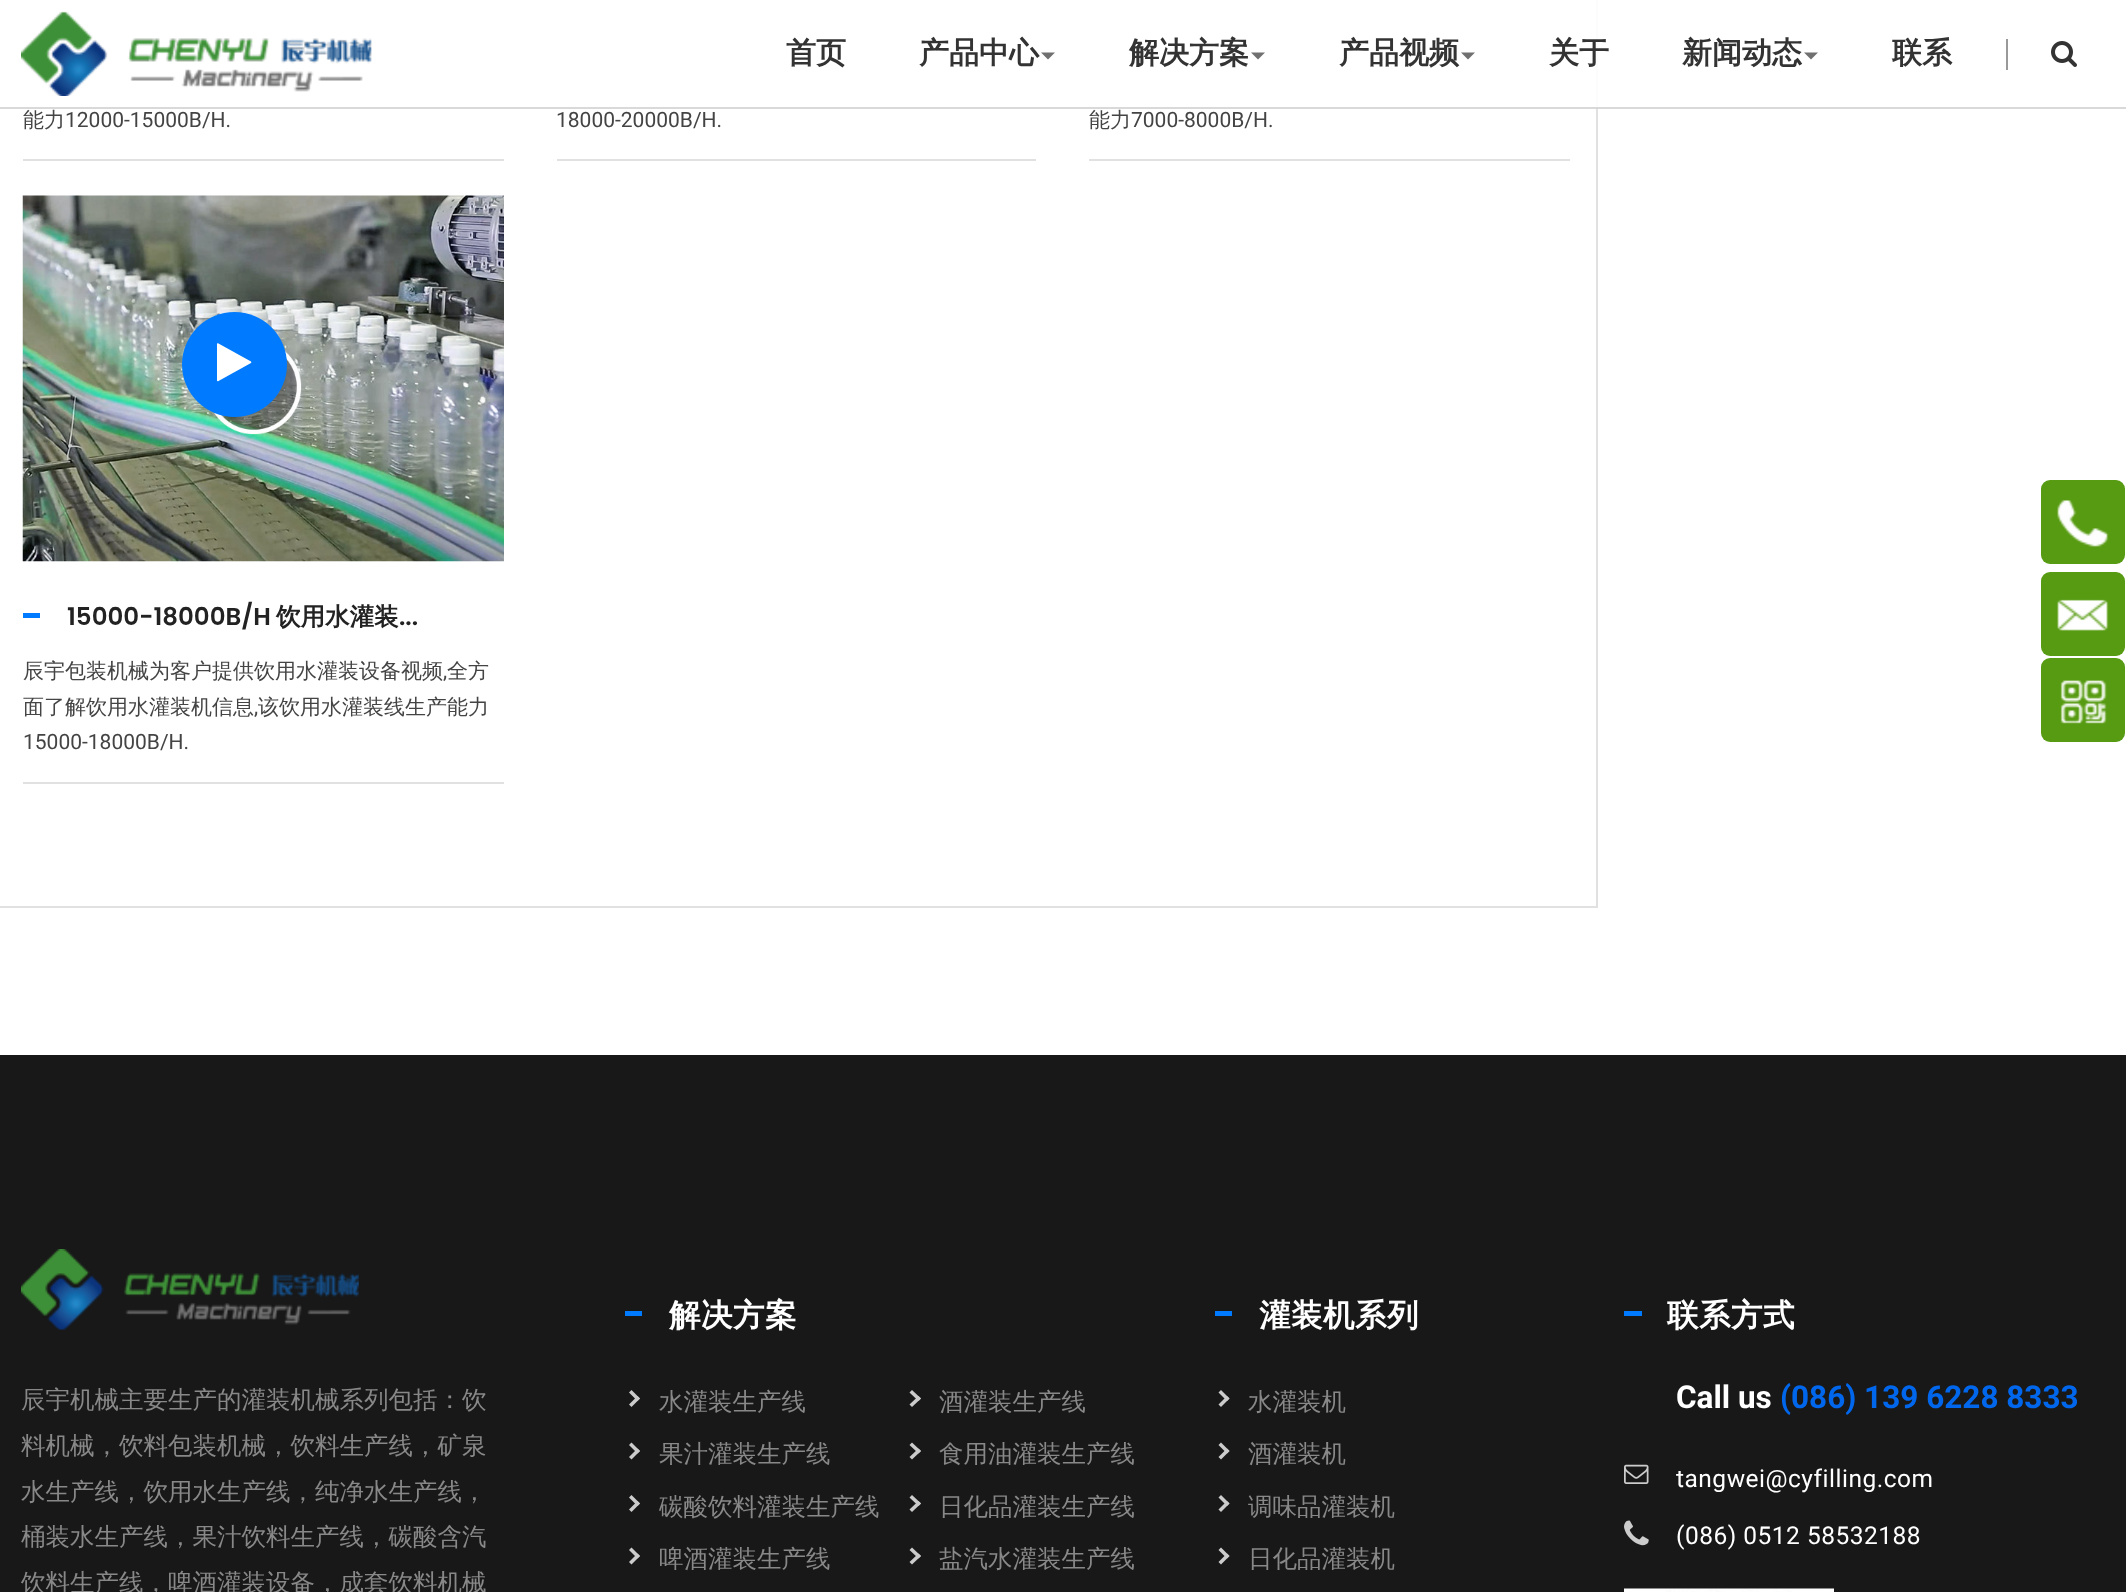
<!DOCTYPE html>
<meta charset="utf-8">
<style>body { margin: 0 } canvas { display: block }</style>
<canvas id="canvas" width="2126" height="1592"></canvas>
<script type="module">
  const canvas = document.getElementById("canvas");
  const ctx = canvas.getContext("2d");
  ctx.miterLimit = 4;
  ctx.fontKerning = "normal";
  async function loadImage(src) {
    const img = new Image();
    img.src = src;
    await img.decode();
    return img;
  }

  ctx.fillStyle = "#ffffff";
  ctx.fillRect(0, 0, 2126, 1592);
  ctx.strokeStyle = "#e1e1e1";
  ctx.lineWidth = 2;
  ctx.strokeRect(-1, -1, 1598, 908);
  ctx.fillStyle = "rgba(255, 255, 255, 0.9)";
  ctx.fillRect(1596, 0, 2, 109);
  ctx.fillStyle = "rgba(0, 0, 0, 0.15)";
  ctx.fillRect(0, 107, 2126, 2);
  ctx.drawImage(await loadImage("img1.png"), 21, 11, 351, 85);
  ctx.font = "bold 30px WenQuanYi Zen Hei";
  ctx.fillStyle = "#333333";
  ctx.fillText("首页", 786, 63);
  ctx.fillText("产品中心", 919, 63);
  ctx.fillStyle = "#707070";
  ctx.beginPath();
  ctx.moveTo(1041, 52.5);
  ctx.lineTo(1055, 52.5);
  ctx.lineTo(1048, 59.5);
  ctx.closePath();
  ctx.fill();
  ctx.fillStyle = "#333333";
  ctx.fillText("解决方案", 1129, 63);
  ctx.fillStyle = "rgba(51, 51, 51, 0.7)";
  ctx.beginPath();
  ctx.moveTo(1251, 52.5);
  ctx.lineTo(1265, 52.5);
  ctx.lineTo(1258, 59.5);
  ctx.closePath();
  ctx.fill();
  ctx.fillStyle = "#333333";
  ctx.fillText("产品视频", 1339, 63);
  ctx.fillStyle = "rgba(51, 51, 51, 0.7)";
  ctx.beginPath();
  ctx.moveTo(1461, 52.5);
  ctx.lineTo(1475, 52.5);
  ctx.lineTo(1468, 59.5);
  ctx.closePath();
  ctx.fill();
  ctx.fillStyle = "#333333";
  ctx.fillText("关于", 1549, 63);
  ctx.fillText("新闻动态", 1682, 63);
  ctx.fillStyle = "#707070";
  ctx.beginPath();
  ctx.moveTo(1804, 52.5);
  ctx.lineTo(1818, 52.5);
  ctx.lineTo(1811, 59.5);
  ctx.closePath();
  ctx.fill();
  ctx.fillStyle = "#333333";
  ctx.fillText("联系", 1892, 63);
  ctx.fillStyle = "#999999";
  ctx.fillRect(2006, 39, 2, 31);
  ctx.drawImage(await loadImage("img2.png"), 2051, 41, 26, 26);
  ctx.fillStyle = "#e1e1e1";
  ctx.fillRect(23, 159, 481, 2);
  ctx.font = "500 21px WenQuanYi Zen Hei";
  ctx.fillStyle = "#444444";
  ctx.fillText("能力", 23, 127);
  ctx.font = "21px Roboto";
  ctx.fillText("12000-15000B/H.", 65, 127);
  ctx.fillStyle = "#e1e1e1";
  ctx.fillRect(557, 159, 479, 2);
  ctx.fillStyle = "#444444";
  ctx.fillText("18000-20000B/H.", 556, 127);
  ctx.fillStyle = "#e1e1e1";
  ctx.fillRect(1089, 159, 481, 2);
  ctx.font = "500 21px WenQuanYi Zen Hei";
  ctx.fillStyle = "#444444";
  ctx.fillText("能力", 1089, 127);
  ctx.font = "21px Roboto";
  ctx.fillText("7000-8000B/H.", 1131, 127);
  ctx.drawImage(await loadImage("img3.png"), 22, 195, 482, 367);
  ctx.fillStyle = "#007bff";
  ctx.beginPath();
  ctx.arc(234.5, 364.5, 52.5, 0, Math.PI * 2);
  ctx.fill();
  ctx.fillStyle = "#ffffff";
  ctx.beginPath();
  ctx.moveTo(251, 363);
  ctx.bezierCurveTo(251.5, 362.5, 251.5, 362, 251, 361.5);
  ctx.lineTo(218.5, 343.5);
  ctx.bezierCurveTo(217.5, 343, 217, 343.5, 217, 344.5);
  ctx.lineTo(217, 380.5);
  ctx.bezierCurveTo(217, 381, 217.5, 381.5, 218.5, 381);
  ctx.closePath();
  ctx.fill();
  ctx.fillStyle = "#007bff";
  ctx.fillRect(23, 613, 17, 5);
  ctx.font = "600 24.5px Poppins";
  ctx.fillStyle = "#222222";
  ctx.fillText("15000-18000B/H", 67, 625);
  ctx.font = "bold 24.5px WenQuanYi Zen Hei";
  ctx.fillText("饮用水灌装", 276, 625);
  ctx.font = "600 24.5px Poppins";
  ctx.fillText("...", 399, 625);
  ctx.fillStyle = "#e1e1e1";
  ctx.fillRect(23, 782, 481, 2);
  ctx.font = "500 21px WenQuanYi Zen Hei";
  ctx.fillStyle = "#444444";
  ctx.fillText("辰宇包装机械为客户提供饮用水灌装设备视频", 23, 678);
  ctx.font = "21px Roboto";
  ctx.fillText(",", 443, 678);
  ctx.font = "500 21px WenQuanYi Zen Hei";
  ctx.fillText("全方", 447, 678);
  ctx.fillText("面了解饮用水灌装机信息", 23, 714);
  ctx.font = "21px Roboto";
  ctx.fillText(",", 254, 714);
  ctx.font = "500 21px WenQuanYi Zen Hei";
  ctx.fillText("该饮用水灌装线生产能力", 258, 714);
  ctx.font = "21px Roboto";
  ctx.fillText("15000-18000B/H.", 23, 749);
  ctx.fillStyle = "#579b12";
  ctx.beginPath();
  ctx.roundRect(2041, 480, 84, 84, 9);
  ctx.fill();
  ctx.drawImage(await loadImage("img4.png"), 2057, 500, 52, 47);
  ctx.beginPath();
  ctx.roundRect(2041, 572, 84, 84, 9);
  ctx.fill();
  ctx.drawImage(await loadImage("img5.png"), 2057, 599, 52, 32);
  ctx.beginPath();
  ctx.roundRect(2041, 658, 84, 84, 9);
  ctx.fill();
  ctx.drawImage(await loadImage("img6.png"), 2060, 680, 47, 44);
  ctx.fillStyle = "#181818";
  ctx.fillRect(0, 1055, 2126, 537);
  ctx.drawImage(await loadImage("img7.png"), 21, 1249, 338, 81);
  ctx.font = "500 24.5px WenQuanYi Zen Hei";
  ctx.fillStyle = "#888888";
  ctx.fillText("辰宇机械主要生产的灌装机械系列包括：饮", 21, 1408);
  ctx.fillText("料机械，饮料包装机械，饮料生产线，矿泉", 21, 1454);
  ctx.fillText("水生产线，饮用水生产线，纯净水生产线，", 21, 1500);
  ctx.fillText("桶装水生产线，果汁饮料生产线，碳酸含汽", 21, 1545);
  ctx.fillText("饮料生产线，啤酒灌装设备，成套饮料机械", 21, 1591);
  ctx.fillStyle = "#007bff";
  ctx.fillRect(625, 1311, 17, 5);
  ctx.letterSpacing = "0.5px";
  ctx.font = "bold 31.5px WenQuanYi Zen Hei";
  ctx.fillStyle = "#ffffff";
  ctx.fillText("解决方案", 669, 1326);
  ctx.fillStyle = "#cccccc";
  ctx.beginPath();
  ctx.moveTo(631.5, 1390);
  ctx.lineTo(640, 1398.5);
  ctx.lineTo(637.5, 1401);
  ctx.lineTo(629, 1392.5);
  ctx.closePath();
  ctx.fill();
  ctx.beginPath();
  ctx.moveTo(637.5, 1396);
  ctx.lineTo(640, 1398.5);
  ctx.lineTo(631.5, 1407);
  ctx.lineTo(629, 1404.5);
  ctx.closePath();
  ctx.fill();
  ctx.letterSpacing = "0px";
  ctx.font = "500 24.5px WenQuanYi Zen Hei";
  ctx.fillStyle = "#888888";
  ctx.fillText("水灌装生产线", 659, 1410);
  ctx.fillStyle = "#cccccc";
  ctx.beginPath();
  ctx.moveTo(912, 1390);
  ctx.lineTo(921, 1398.5);
  ctx.lineTo(918.5, 1401);
  ctx.lineTo(909.5, 1392.5);
  ctx.closePath();
  ctx.fill();
  ctx.beginPath();
  ctx.moveTo(918.5, 1396);
  ctx.lineTo(921, 1398.5);
  ctx.lineTo(912, 1407);
  ctx.lineTo(909.5, 1404.5);
  ctx.closePath();
  ctx.fill();
  ctx.fillStyle = "#888888";
  ctx.fillText("酒灌装生产线", 939, 1410);
  ctx.fillStyle = "#cccccc";
  ctx.beginPath();
  ctx.moveTo(631.5, 1442.5);
  ctx.lineTo(640, 1451);
  ctx.lineTo(637.5, 1453.5);
  ctx.lineTo(629, 1445);
  ctx.closePath();
  ctx.fill();
  ctx.beginPath();
  ctx.moveTo(637.5, 1448.5);
  ctx.lineTo(640, 1451);
  ctx.lineTo(631.5, 1459.5);
  ctx.lineTo(629, 1457);
  ctx.closePath();
  ctx.fill();
  ctx.fillStyle = "#888888";
  ctx.fillText("果汁灌装生产线", 659, 1462);
  ctx.fillStyle = "#cccccc";
  ctx.beginPath();
  ctx.moveTo(912, 1442.5);
  ctx.lineTo(921, 1451);
  ctx.lineTo(918.5, 1453.5);
  ctx.lineTo(909.5, 1445);
  ctx.closePath();
  ctx.fill();
  ctx.beginPath();
  ctx.moveTo(918.5, 1448.5);
  ctx.lineTo(921, 1451);
  ctx.lineTo(912, 1459.5);
  ctx.lineTo(909.5, 1457);
  ctx.closePath();
  ctx.fill();
  ctx.fillStyle = "#888888";
  ctx.fillText("食用油灌装生产线", 939, 1462);
  ctx.fillStyle = "#cccccc";
  ctx.beginPath();
  ctx.moveTo(631.5, 1495);
  ctx.lineTo(640, 1503.5);
  ctx.lineTo(637.5, 1506);
  ctx.lineTo(629, 1497.5);
  ctx.closePath();
  ctx.fill();
  ctx.beginPath();
  ctx.moveTo(637.5, 1501);
  ctx.lineTo(640, 1503.5);
  ctx.lineTo(631.5, 1512);
  ctx.lineTo(629, 1509.5);
  ctx.closePath();
  ctx.fill();
  ctx.fillStyle = "#888888";
  ctx.fillText("碳酸饮料灌装生产线", 659, 1515);
  ctx.fillStyle = "#cccccc";
  ctx.beginPath();
  ctx.moveTo(912, 1495);
  ctx.lineTo(921, 1503.5);
  ctx.lineTo(918.5, 1506);
  ctx.lineTo(909.5, 1497.5);
  ctx.closePath();
  ctx.fill();
  ctx.beginPath();
  ctx.moveTo(918.5, 1501);
  ctx.lineTo(921, 1503.5);
  ctx.lineTo(912, 1512);
  ctx.lineTo(909.5, 1509.5);
  ctx.closePath();
  ctx.fill();
  ctx.fillStyle = "#888888";
  ctx.fillText("日化品灌装生产线", 939, 1515);
  ctx.fillStyle = "#cccccc";
  ctx.beginPath();
  ctx.moveTo(631.5, 1547.5);
  ctx.lineTo(640, 1556);
  ctx.lineTo(637.5, 1558.5);
  ctx.lineTo(629, 1550);
  ctx.closePath();
  ctx.fill();
  ctx.beginPath();
  ctx.moveTo(637.5, 1553.5);
  ctx.lineTo(640, 1556);
  ctx.lineTo(631.5, 1564.5);
  ctx.lineTo(629, 1562);
  ctx.closePath();
  ctx.fill();
  ctx.fillStyle = "#888888";
  ctx.fillText("啤酒灌装生产线", 659, 1567);
  ctx.fillStyle = "#cccccc";
  ctx.beginPath();
  ctx.moveTo(912, 1547.5);
  ctx.lineTo(921, 1556);
  ctx.lineTo(918.5, 1558.5);
  ctx.lineTo(909.5, 1550);
  ctx.closePath();
  ctx.fill();
  ctx.beginPath();
  ctx.moveTo(918.5, 1553.5);
  ctx.lineTo(921, 1556);
  ctx.lineTo(912, 1564.5);
  ctx.lineTo(909.5, 1562);
  ctx.closePath();
  ctx.fill();
  ctx.fillStyle = "#888888";
  ctx.fillText("盐汽水灌装生产线", 939, 1567);
  ctx.fillStyle = "#007bff";
  ctx.fillRect(1215, 1311, 17, 5);
  ctx.letterSpacing = "0.5px";
  ctx.font = "bold 31.5px WenQuanYi Zen Hei";
  ctx.fillStyle = "#ffffff";
  ctx.fillText("灌装机系列", 1259, 1326);
  ctx.fillStyle = "#cccccc";
  ctx.beginPath();
  ctx.moveTo(1221, 1390);
  ctx.lineTo(1229.5, 1398.5);
  ctx.lineTo(1227, 1401);
  ctx.lineTo(1218.5, 1392.5);
  ctx.closePath();
  ctx.fill();
  ctx.beginPath();
  ctx.moveTo(1227, 1396);
  ctx.lineTo(1229.5, 1398.5);
  ctx.lineTo(1221, 1407);
  ctx.lineTo(1218.5, 1404.5);
  ctx.closePath();
  ctx.fill();
  ctx.letterSpacing = "0px";
  ctx.font = "500 24.5px WenQuanYi Zen Hei";
  ctx.fillStyle = "#888888";
  ctx.fillText("水灌装机", 1248, 1410);
  ctx.fillStyle = "#cccccc";
  ctx.beginPath();
  ctx.moveTo(1221, 1442.5);
  ctx.lineTo(1229.5, 1451);
  ctx.lineTo(1227, 1453.5);
  ctx.lineTo(1218.5, 1445);
  ctx.closePath();
  ctx.fill();
  ctx.beginPath();
  ctx.moveTo(1227, 1448.5);
  ctx.lineTo(1229.5, 1451);
  ctx.lineTo(1221, 1459.5);
  ctx.lineTo(1218.5, 1457);
  ctx.closePath();
  ctx.fill();
  ctx.fillStyle = "#888888";
  ctx.fillText("酒灌装机", 1248, 1462);
  ctx.fillStyle = "#cccccc";
  ctx.beginPath();
  ctx.moveTo(1221, 1495);
  ctx.lineTo(1229.5, 1503.5);
  ctx.lineTo(1227, 1506);
  ctx.lineTo(1218.5, 1497.5);
  ctx.closePath();
  ctx.fill();
  ctx.beginPath();
  ctx.moveTo(1227, 1501);
  ctx.lineTo(1229.5, 1503.5);
  ctx.lineTo(1221, 1512);
  ctx.lineTo(1218.5, 1509.5);
  ctx.closePath();
  ctx.fill();
  ctx.fillStyle = "#888888";
  ctx.fillText("调味品灌装机", 1248, 1515);
  ctx.fillStyle = "#cccccc";
  ctx.beginPath();
  ctx.moveTo(1221, 1547.5);
  ctx.lineTo(1229.5, 1556);
  ctx.lineTo(1227, 1558.5);
  ctx.lineTo(1218.5, 1550);
  ctx.closePath();
  ctx.fill();
  ctx.beginPath();
  ctx.moveTo(1227, 1553.5);
  ctx.lineTo(1229.5, 1556);
  ctx.lineTo(1221, 1564.5);
  ctx.lineTo(1218.5, 1562);
  ctx.closePath();
  ctx.fill();
  ctx.fillStyle = "#888888";
  ctx.fillText("日化品灌装机", 1248, 1567);
  ctx.fillStyle = "#007bff";
  ctx.fillRect(1624, 1311, 18, 5);
  ctx.letterSpacing = "0.5px";
  ctx.font = "bold 31.5px WenQuanYi Zen Hei";
  ctx.fillStyle = "#ffffff";
  ctx.fillText("联系方式", 1667, 1326);
  ctx.letterSpacing = "0px";
  ctx.font = "bold 31.5px Roboto";
  ctx.fillText("Call us", 1676, 1408);
  ctx.fillStyle = "#0067ed";
  ctx.fillText("(086) 139 6228 8333", 1780, 1408);
  ctx.drawImage(await loadImage("img8.png"), 1624, 1464, 25, 20);
  ctx.letterSpacing = "0.5px";
  ctx.font = "24.5px Roboto";
  ctx.fillStyle = "#ffffff";
  ctx.fillText("tangwei@cyfilling.com", 1676, 1487);
  ctx.drawImage(await loadImage("img9.png"), 1624, 1520, 25, 26);
  ctx.fillText("(086) 0512 58532188", 1676, 1544);
  ctx.drawImage(await loadImage("img10.png"), 1624, 1588, 210, 4);
</script>
